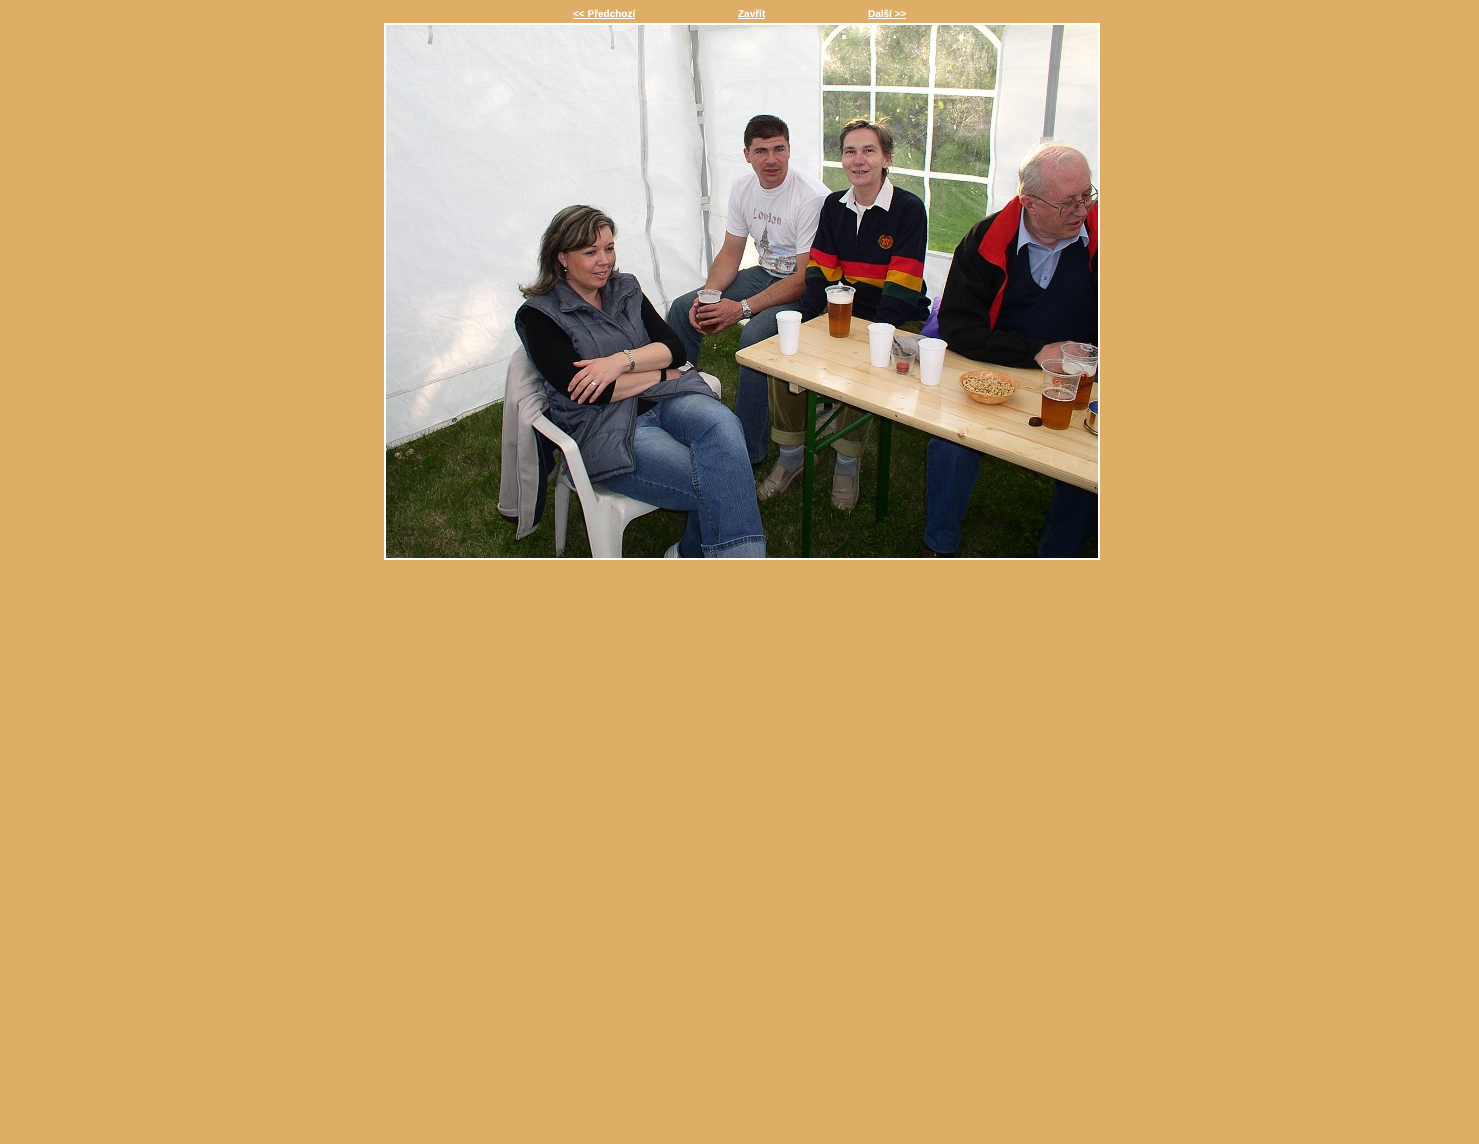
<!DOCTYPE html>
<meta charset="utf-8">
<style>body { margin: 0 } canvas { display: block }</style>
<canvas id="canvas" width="1479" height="1144"></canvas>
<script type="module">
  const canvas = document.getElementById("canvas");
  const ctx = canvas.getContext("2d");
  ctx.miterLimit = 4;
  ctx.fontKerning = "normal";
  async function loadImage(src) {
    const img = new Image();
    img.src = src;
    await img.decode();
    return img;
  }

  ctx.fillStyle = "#dead66";
  ctx.fillRect(0, 0, 1479, 1144);
  ctx.font = "bold 10px Liberation Sans";
  ctx.fillStyle = "#ffffff";
  ctx.fillText("<< Předchozí", 573, 17);
  ctx.fillRect(573, 18, 62, 1);
  ctx.fillText("Zavřít", 738, 17);
  ctx.fillRect(738, 18, 27, 1);
  ctx.fillText("Další >>", 868, 17);
  ctx.fillRect(868, 18, 38, 1);
  ctx.strokeStyle = "#ffffff";
  ctx.lineWidth = 2;
  ctx.strokeRect(385, 24, 714, 535);
  ctx.drawImage(await loadImage("img1.png"), 386, 25, 712, 533);
</script>
